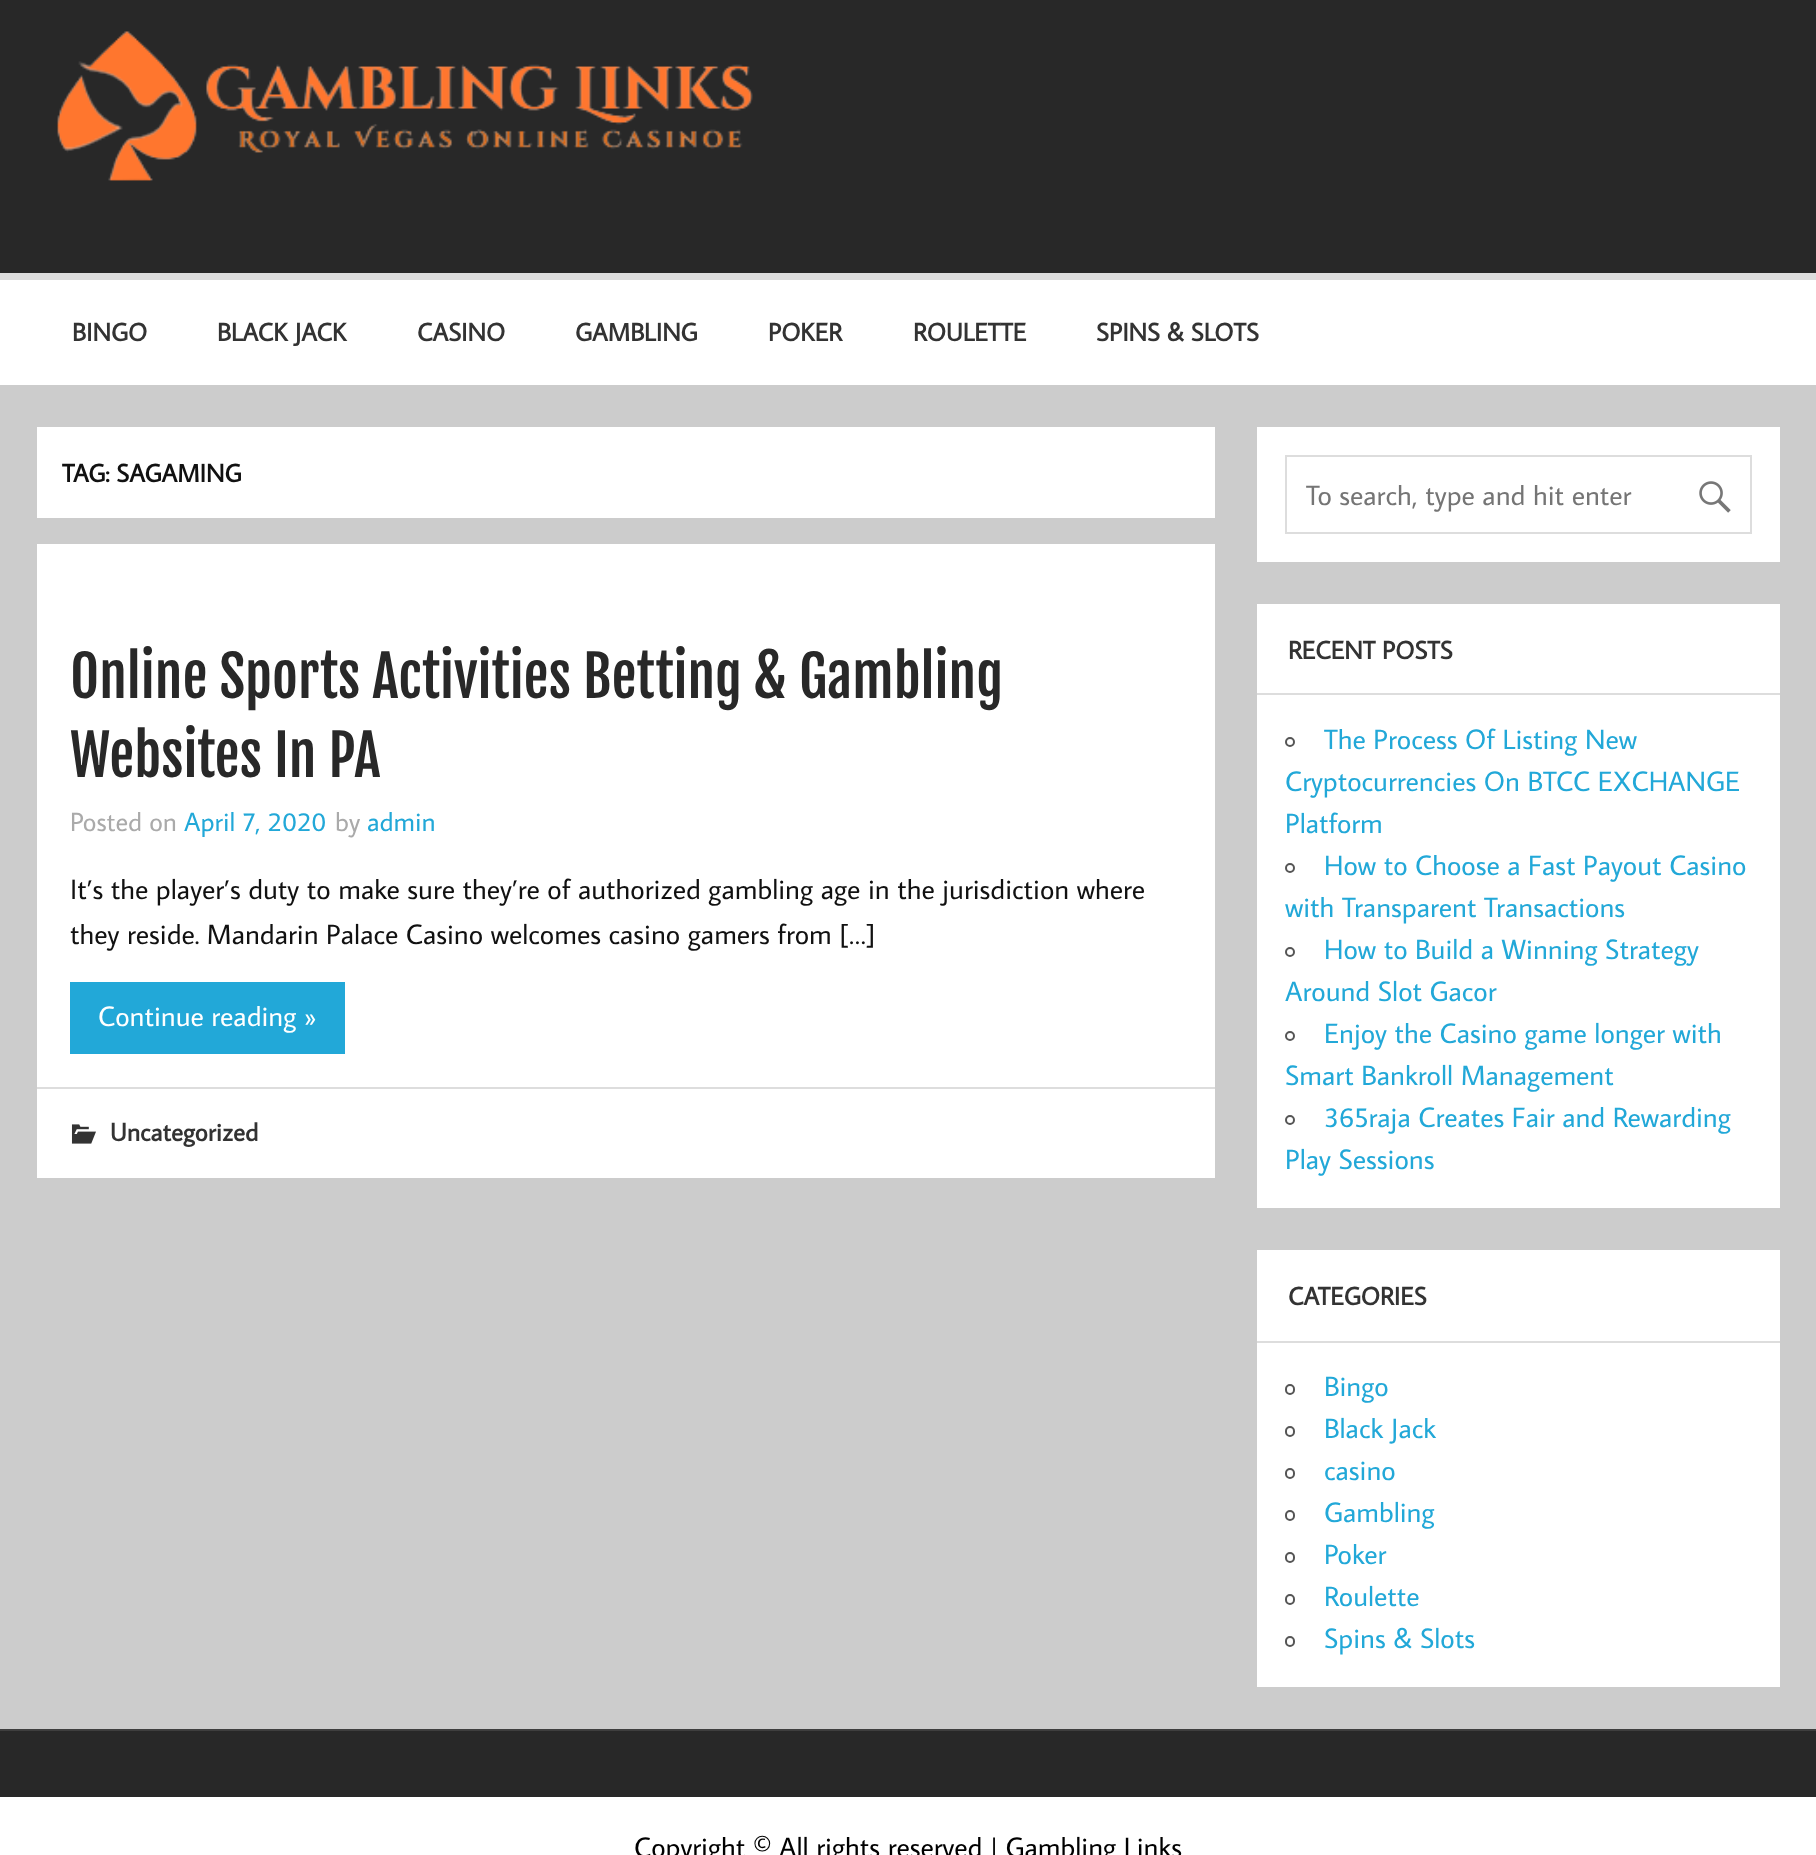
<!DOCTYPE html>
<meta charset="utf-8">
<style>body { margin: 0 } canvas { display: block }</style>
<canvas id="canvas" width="1816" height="1855"></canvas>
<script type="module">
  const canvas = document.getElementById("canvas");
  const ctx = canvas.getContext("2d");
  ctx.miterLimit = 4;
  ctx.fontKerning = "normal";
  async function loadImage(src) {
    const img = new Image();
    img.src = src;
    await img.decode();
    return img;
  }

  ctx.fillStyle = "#cccccc";
  ctx.fillRect(0, 0, 1816, 1855);
  ctx.fillStyle = "#282828";
  ctx.fillRect(0, 0, 1816, 273);
  ctx.drawImage(await loadImage("img1.png"), 57, 31, 696, 150);
  ctx.fillStyle = "#ffffff";
  ctx.fillRect(0, 280, 1816, 105);
  ctx.fillStyle = "#dddddd";
  ctx.fillRect(0, 273, 1816, 7);
  ctx.font = "bold 25.25px Average Sans";
  ctx.fillStyle = "#333333";
  ctx.fillText("BINGO", 72, 341);
  ctx.fillText("BLACK JACK", 217, 341);
  ctx.fillText("CASINO", 417, 341);
  ctx.fillText("GAMBLING", 575, 341);
  ctx.fillText("POKER", 768, 341);
  ctx.fillText("ROULETTE", 913, 341);
  ctx.fillText("SPINS & SLOTS", 1096, 341);
  ctx.fillStyle = "#ffffff";
  ctx.fillRect(37, 427, 1178, 91);
  ctx.fillStyle = "#111111";
  ctx.fillText("TAG: SAGAMING", 62, 482);
  ctx.fillStyle = "#ffffff";
  ctx.fillRect(37, 544, 1178, 634);
  ctx.font = "56px Fjalla One";
  ctx.fillStyle = "#282828";
  ctx.fillText("Online Sports Activities Betting & Gambling", 70, 698);
  ctx.fillText("Websites In PA", 70, 777);
  ctx.font = "26.5px Average Sans";
  ctx.fillStyle = "#aaaaaa";
  ctx.fillText("Posted on", 70, 831);
  ctx.fillStyle = "#22a8d8";
  ctx.fillText("April 7, 2020", 184, 831);
  ctx.fillStyle = "#aaaaaa";
  ctx.fillText("by", 335, 831);
  ctx.fillStyle = "#22a8d8";
  ctx.fillText("admin", 367, 831);
  ctx.font = "28px Average Sans";
  ctx.fillStyle = "#111111";
  ctx.fillText("It’s the player’s duty to make sure they’re of authorized gambling age in the jurisdiction where", 70, 899);
  ctx.fillText("they reside. Mandarin Palace Casino welcomes casino gamers from […]", 70, 944);
  ctx.fillStyle = "#22a8d8";
  ctx.fillRect(70, 982, 275, 72);
  ctx.fillStyle = "#ffffff";
  ctx.fillText("Continue reading »", 98, 1026);
  ctx.fillStyle = "#dddddd";
  ctx.fillRect(37, 1087, 1178, 2);
  ctx.drawImage(await loadImage("img2.png"), 71, 1124, 25, 20);
  ctx.font = "bold 25.25px Average Sans";
  ctx.fillStyle = "#333333";
  ctx.fillText("Uncategorized", 110, 1141);
  ctx.fillStyle = "#ffffff";
  ctx.fillRect(1257, 427, 523, 135);
  ctx.strokeStyle = "#dddddd";
  ctx.lineWidth = 2;
  ctx.strokeRect(1286, 456, 465, 77);
  ctx.font = "28px Average Sans";
  ctx.fillStyle = "#757575";
  ctx.fillText("To search, type and hit enter", 1306, 505);
  ctx.drawImage(await loadImage("img3.png"), 1699, 481, 32, 32);
  ctx.fillStyle = "#ffffff";
  ctx.fillRect(1257, 604, 523, 604);
  ctx.fillStyle = "#dddddd";
  ctx.fillRect(1257, 693, 523, 2);
  ctx.font = "bold 25.25px Average Sans";
  ctx.fillStyle = "#333333";
  ctx.fillText("RECENT POSTS", 1288, 659);
  ctx.beginPath();
  ctx.arc(1290, 742, 4, 0, Math.PI * 2);
  ctx.strokeStyle = "#555555";
  ctx.stroke();
  ctx.font = "28px Average Sans";
  ctx.fillStyle = "#22a8d8";
  ctx.fillText("The Process Of Listing New", 1324, 749);
  ctx.fillText("Cryptocurrencies On BTCC EXCHANGE", 1285, 791);
  ctx.fillText("Platform", 1285, 833);
  ctx.beginPath();
  ctx.arc(1290, 868, 4, 0, Math.PI * 2);
  ctx.stroke();
  ctx.fillText("How to Choose a Fast Payout Casino", 1324, 875);
  ctx.fillText("with Transparent Transactions", 1285, 917);
  ctx.beginPath();
  ctx.arc(1290, 952, 4, 0, Math.PI * 2);
  ctx.stroke();
  ctx.fillText("How to Build a Winning Strategy", 1324, 959);
  ctx.fillText("Around Slot Gacor", 1285, 1001);
  ctx.beginPath();
  ctx.arc(1290, 1036, 4, 0, Math.PI * 2);
  ctx.stroke();
  ctx.fillText("Enjoy the Casino game longer with", 1324, 1043);
  ctx.fillText("Smart Bankroll Management", 1285, 1085);
  ctx.beginPath();
  ctx.arc(1290, 1120, 4, 0, Math.PI * 2);
  ctx.stroke();
  ctx.fillText("365raja Creates Fair and Rewarding", 1324, 1127);
  ctx.fillText("Play Sessions", 1285, 1169);
  ctx.fillStyle = "#ffffff";
  ctx.fillRect(1257, 1250, 523, 437);
  ctx.fillStyle = "#dddddd";
  ctx.fillRect(1257, 1341, 523, 2);
  ctx.font = "bold 25.25px Average Sans";
  ctx.fillStyle = "#333333";
  ctx.fillText("CATEGORIES", 1288, 1305);
  ctx.beginPath();
  ctx.roundRect(1286, 1385, 8, 9, 4);
  ctx.stroke();
  ctx.font = "28px Average Sans";
  ctx.fillStyle = "#22a8d8";
  ctx.fillText("Bingo", 1324, 1396);
  ctx.beginPath();
  ctx.roundRect(1286, 1427, 8, 9, 4);
  ctx.stroke();
  ctx.fillText("Black Jack", 1324, 1438);
  ctx.beginPath();
  ctx.roundRect(1286, 1469, 8, 9, 4);
  ctx.stroke();
  ctx.fillText("casino", 1324, 1480);
  ctx.beginPath();
  ctx.roundRect(1286, 1511, 8, 9, 4);
  ctx.stroke();
  ctx.fillText("Gambling", 1324, 1522);
  ctx.beginPath();
  ctx.roundRect(1286, 1553, 8, 9, 4);
  ctx.stroke();
  ctx.fillText("Poker", 1324, 1564);
  ctx.beginPath();
  ctx.roundRect(1286, 1595, 8, 9, 4);
  ctx.stroke();
  ctx.fillText("Roulette", 1324, 1606);
  ctx.beginPath();
  ctx.roundRect(1286, 1637, 8, 9, 4);
  ctx.stroke();
  ctx.fillText("Spins & Slots", 1324, 1648);
  ctx.fillStyle = "#282828";
  ctx.fillRect(0, 1731, 1816, 66);
  ctx.fillStyle = "#3e3e3e";
  ctx.fillRect(0, 1729, 1816, 2);
  ctx.fillStyle = "#ffffff";
  ctx.fillRect(0, 1797, 1816, 58);
  ctx.fillStyle = "#000000";
  ctx.fillText("Copyright © All rights reserved | Gambling Links", 634, 1857);
</script>
